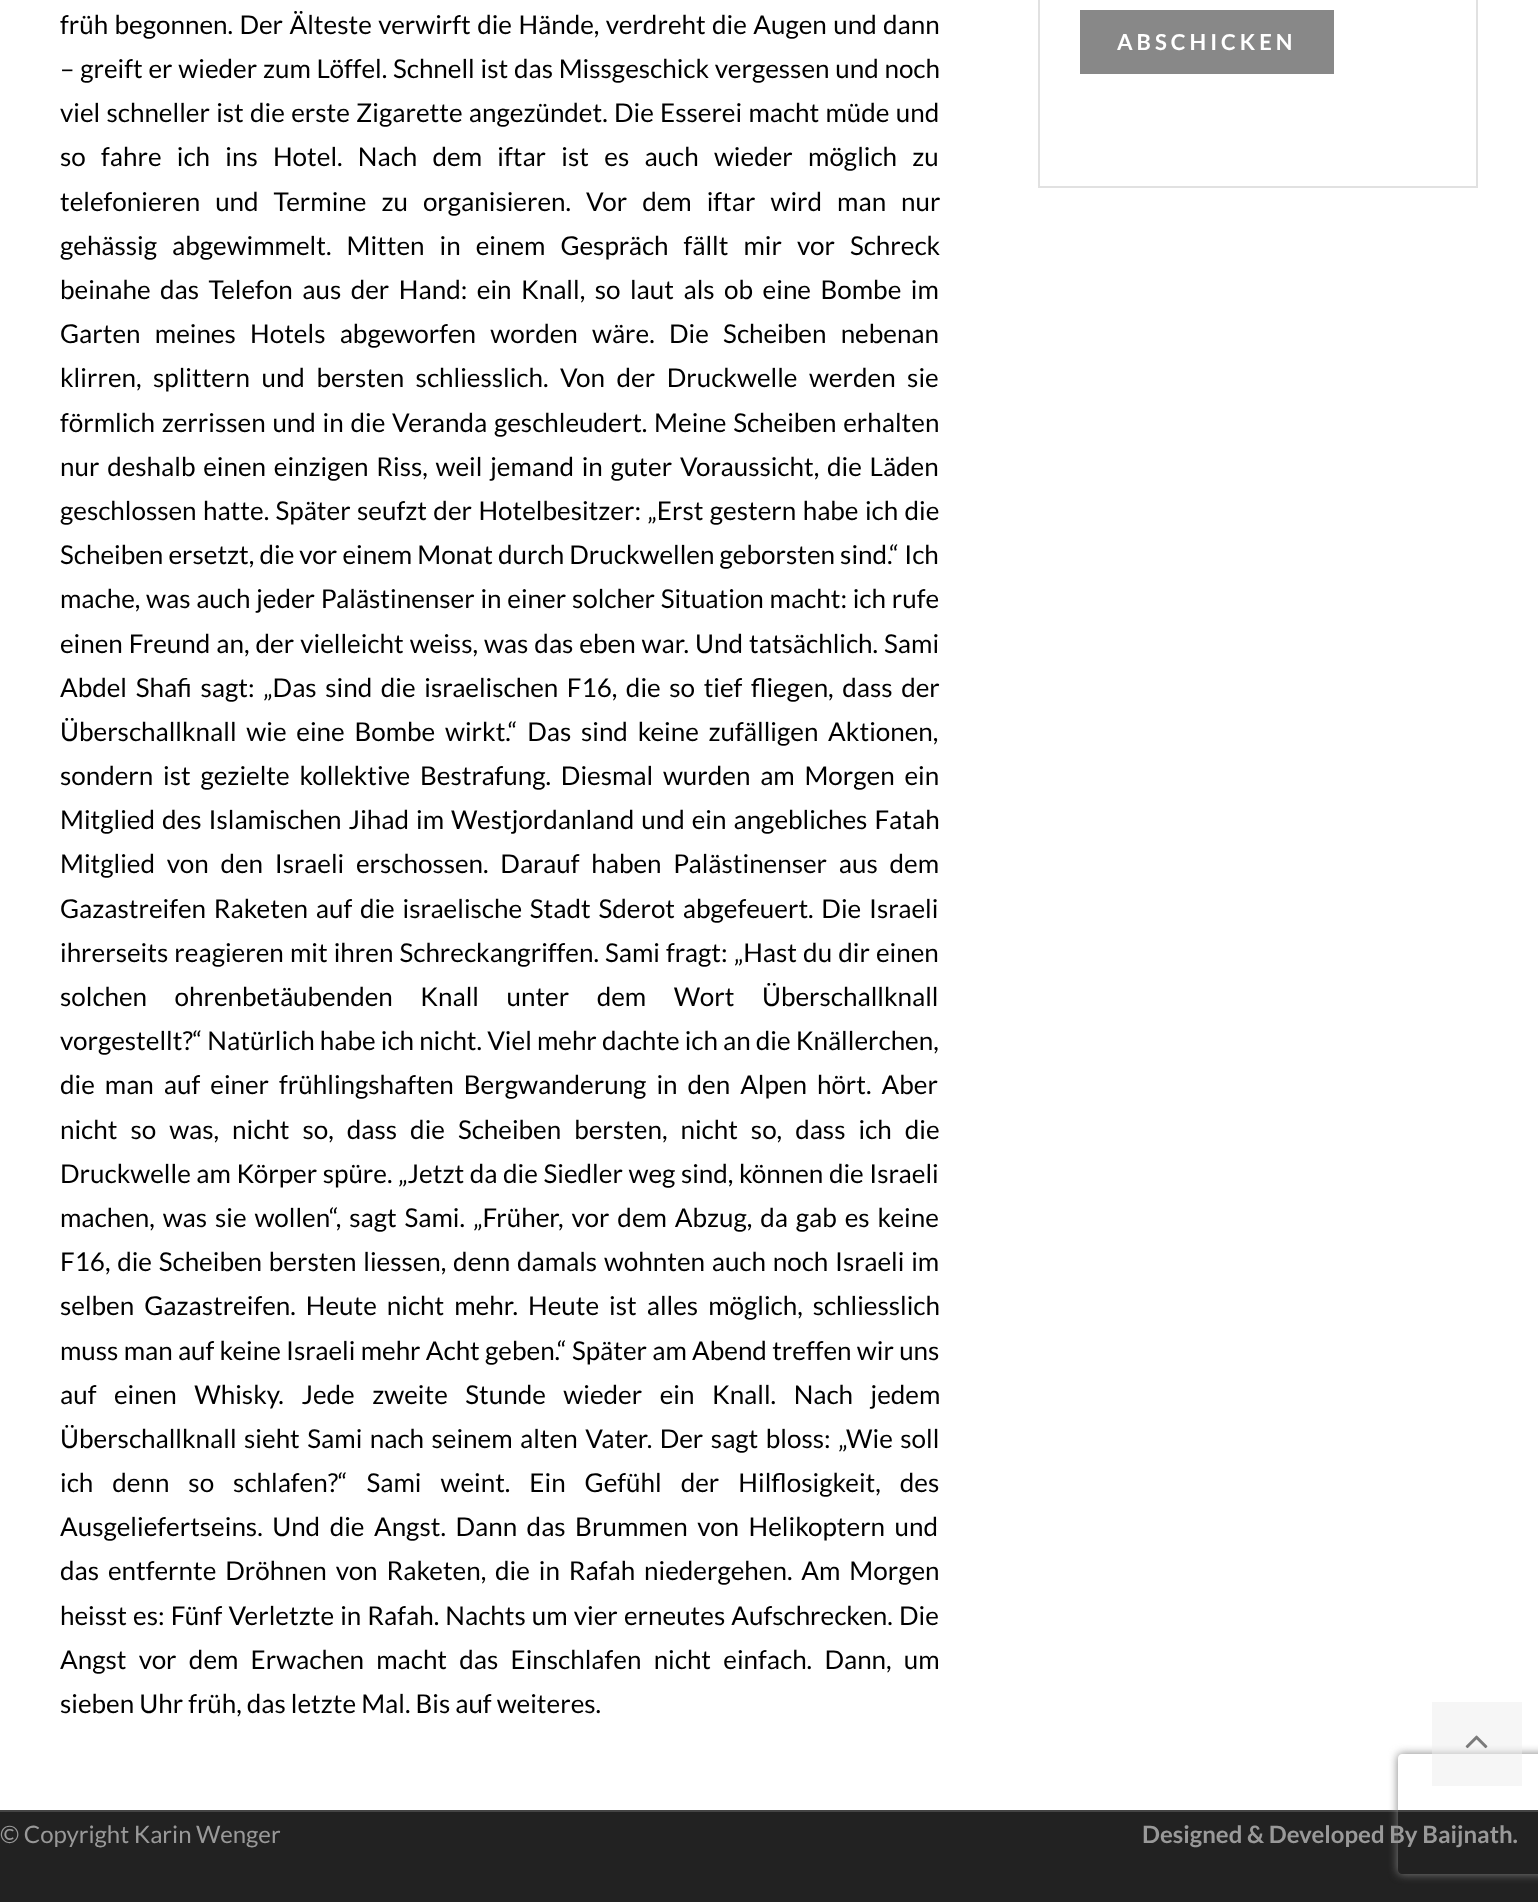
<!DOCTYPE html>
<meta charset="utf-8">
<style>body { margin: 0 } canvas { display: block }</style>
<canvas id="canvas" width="1538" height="1902"></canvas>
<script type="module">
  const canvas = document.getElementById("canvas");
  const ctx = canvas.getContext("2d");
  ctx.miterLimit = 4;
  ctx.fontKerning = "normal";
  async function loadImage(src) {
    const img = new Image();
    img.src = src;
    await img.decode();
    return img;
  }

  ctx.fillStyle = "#ffffff";
  ctx.fillRect(0, 0, 1538, 1902);
  ctx.wordSpacing = "1.4px";
  ctx.font = "26px Lato";
  ctx.fillStyle = "#000000";
  ctx.fillText("früh begonnen. Der Älteste verwirft die Hände, verdreht die Augen und dann", 60, 34);
  ctx.wordSpacing = "0.75px";
  ctx.fillText("– greift er wieder zum Löffel. Schnell ist das Missgeschick vergessen und noch", 60, 78);
  ctx.wordSpacing = "1.25px";
  ctx.fillText("viel schneller ist die erste Zigarette angezündet. Die Esserei macht müde und", 60, 122);
  ctx.wordSpacing = "10.25px";
  ctx.fillText("so fahre ich ins Hotel. Nach dem iftar ist es auch wieder möglich zu", 60, 166);
  ctx.wordSpacing = "10px";
  ctx.fillText("telefonieren und Termine zu organisieren. Vor dem iftar wird man nur", 60, 211);
  ctx.fillText("gehässig abgewimmelt. Mitten in einem Gespräch fällt mir vor Schreck", 60, 255);
  ctx.wordSpacing = "4.5px";
  ctx.fillText("beinahe das Telefon aus der Hand: ein Knall, so laut als ob eine Bombe im", 60, 299);
  ctx.wordSpacing = "9.25px";
  ctx.fillText("Garten meines Hotels abgeworfen worden wäre. Die Scheiben nebenan", 60, 343);
  ctx.wordSpacing = "6.5px";
  ctx.fillText("klirren, splittern und bersten schliesslich. Von der Druckwelle werden sie", 60, 387);
  ctx.wordSpacing = "1.75px";
  ctx.fillText("förmlich zerrissen und in die Veranda geschleudert. Meine Scheiben erhalten", 60, 432);
  ctx.wordSpacing = "2.75px";
  ctx.fillText("nur deshalb einen einzigen Riss, weil jemand in guter Voraussicht, die Läden", 60, 476);
  ctx.wordSpacing = "1.4px";
  ctx.fillText("geschlossen hatte. Später seufzt der Hotelbesitzer: „Erst gestern habe ich die", 60, 520);
  ctx.wordSpacing = "0.1px";
  ctx.fillText("Scheiben ersetzt, die vor einem Monat durch Druckwellen geborsten sind.“ Ich", 60, 564);
  ctx.wordSpacing = "0.75px";
  ctx.fillText("mache, was auch jeder Palästinenser in einer solcher Situation macht: ich rufe", 60, 608);
  ctx.wordSpacing = "1px";
  ctx.fillText("einen Freund an, der vielleicht weiss, was das eben war. Und tatsächlich. Sami", 60, 653);
  ctx.wordSpacing = "3.6px";
  ctx.fillText("Abdel Shafi sagt: „Das sind die israelischen F16, die so tief fliegen, dass der", 60, 697);
  ctx.wordSpacing = "4.75px";
  ctx.fillText("Überschallknall wie eine Bombe wirkt.“ Das sind keine zufälligen Aktionen,", 60, 741);
  ctx.fillText("sondern ist gezielte kollektive Bestrafung. Diesmal wurden am Morgen ein", 60, 785);
  ctx.wordSpacing = "2px";
  ctx.fillText("Mitglied des Islamischen Jihad im Westjordanland und ein angebliches Fatah", 60, 829);
  ctx.wordSpacing = "6.75px";
  ctx.fillText("Mitglied von den Israeli erschossen. Darauf haben Palästinenser aus dem", 60, 873);
  ctx.wordSpacing = "2.75px";
  ctx.fillText("Gazastreifen Raketen auf die israelische Stadt Sderot abgefeuert. Die Israeli", 60, 918);
  ctx.wordSpacing = "1.1px";
  ctx.fillText("ihrerseits reagieren mit ihren Schreckangriffen. Sami fragt: „Hast du dir einen", 60, 962);
  ctx.wordSpacing = "22.5px";
  ctx.fillText("solchen ohrenbetäubenden Knall unter dem Wort Überschallknall", 60, 1006);
  ctx.wordSpacing = "0.1px";
  ctx.fillText("vorgestellt?“ Natürlich habe ich nicht. Viel mehr dachte ich an die Knällerchen,", 60, 1050);
  ctx.wordSpacing = "5px";
  ctx.fillText("die man auf einer frühlingshaften Bergwanderung in den Alpen hört. Aber", 60, 1094);
  ctx.wordSpacing = "8px";
  ctx.fillText("nicht so was, nicht so, dass die Scheiben bersten, nicht so, dass ich die", 60, 1139);
  ctx.wordSpacing = "0.6px";
  ctx.fillText("Druckwelle am Körper spüre. „Jetzt da die Siedler weg sind, können die Israeli", 60, 1183);
  ctx.wordSpacing = "2.9px";
  ctx.fillText("machen, was sie wollen“, sagt Sami. „Früher, vor dem Abzug, da gab es keine", 60, 1227);
  ctx.wordSpacing = "1.75px";
  ctx.fillText("F16, die Scheiben bersten liessen, denn damals wohnten auch noch Israeli im", 60, 1271);
  ctx.wordSpacing = "5px";
  ctx.fillText("selben Gazastreifen. Heute nicht mehr. Heute ist alles möglich, schliesslich", 60, 1315);
  ctx.wordSpacing = "0.25px";
  ctx.fillText("muss man auf keine Israeli mehr Acht geben.“ Später am Abend treffen wir uns", 60, 1360);
  ctx.wordSpacing = "12.5px";
  ctx.fillText("auf einen Whisky. Jede zweite Stunde wieder ein Knall. Nach jedem", 60, 1404);
  ctx.wordSpacing = "2.5px";
  ctx.fillText("Überschallknall sieht Sami nach seinem alten Vater. Der sagt bloss: „Wie soll", 60, 1448);
  ctx.wordSpacing = "14px";
  ctx.fillText("ich denn so schlafen?“ Sami weint. Ein Gefühl der Hilflosigkeit, des", 60, 1492);
  ctx.wordSpacing = "4.5px";
  ctx.fillText("Ausgeliefertseins. Und die Angst. Dann das Brummen von Helikoptern und", 60, 1536);
  ctx.wordSpacing = "3.9px";
  ctx.fillText("das entfernte Dröhnen von Raketen, die in Rafah niedergehen. Am Morgen", 60, 1580);
  ctx.wordSpacing = "1.1px";
  ctx.fillText("heisst es: Fünf Verletzte in Rafah. Nachts um vier erneutes Aufschrecken. Die", 60, 1625);
  ctx.wordSpacing = "7.25px";
  ctx.fillText("Angst vor dem Erwachen macht das Einschlafen nicht einfach. Dann, um", 60, 1669);
  ctx.wordSpacing = "0px";
  ctx.fillText("sieben Uhr früh, das letzte Mal. Bis auf weiteres.", 60, 1713);
  ctx.strokeStyle = "#e1e1e1";
  ctx.lineWidth = 2;
  ctx.strokeRect(1039, -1, 438, 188);
  ctx.fillStyle = "#888888";
  ctx.fillRect(1080, 10, 254, 64);
  ctx.letterSpacing = "4px";
  ctx.font = "bold 22px Lato";
  ctx.fillStyle = "#ffffff";
  ctx.fillText("ABSCHICKEN", 1117, 50);
  ctx.fillStyle = "#222222";
  ctx.fillRect(0, 1812, 1538, 90);
  ctx.fillStyle = "#444444";
  ctx.fillRect(0, 1810, 1538, 2);
  ctx.save();
  ctx.beginPath();
  ctx.moveTo(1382, 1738);
  ctx.lineTo(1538, 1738);
  ctx.lineTo(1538, 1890);
  ctx.lineTo(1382, 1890);
  ctx.closePath();
  ctx.moveTo(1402, 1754);
  ctx.lineTo(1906, 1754);
  ctx.bezierCurveTo(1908, 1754, 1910, 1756, 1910, 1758);
  ctx.lineTo(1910, 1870);
  ctx.bezierCurveTo(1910, 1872, 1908, 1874, 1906, 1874);
  ctx.lineTo(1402, 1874);
  ctx.bezierCurveTo(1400, 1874, 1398, 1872, 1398, 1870);
  ctx.lineTo(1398, 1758);
  ctx.bezierCurveTo(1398, 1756, 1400, 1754, 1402, 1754);
  ctx.closePath();
  ctx.clip("evenodd");
  ctx.fillStyle = "#808080";
  ctx.filter = "blur(5px)";
  ctx.beginPath();
  ctx.roundRect(1398, 1754, 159, 120, 4);
  ctx.fill();
  ctx.filter = "none";
  ctx.restore();
  ctx.fillStyle = "rgba(238, 238, 238, 0.5)";
  ctx.fillRect(1432, 1702, 90, 84);
  ctx.drawImage(await loadImage("img1.png"), 1465, 1735, 23, 14);
  ctx.letterSpacing = "0px";
  ctx.font = "24px Lato";
  ctx.fillStyle = "#999999";
  ctx.fillText("© Copyright Karin Wenger", 0, 1843);
  ctx.font = "bold 24px Lato";
  ctx.fillText("Designed & Developed By Baijnath.", 1142, 1843);
</script>
